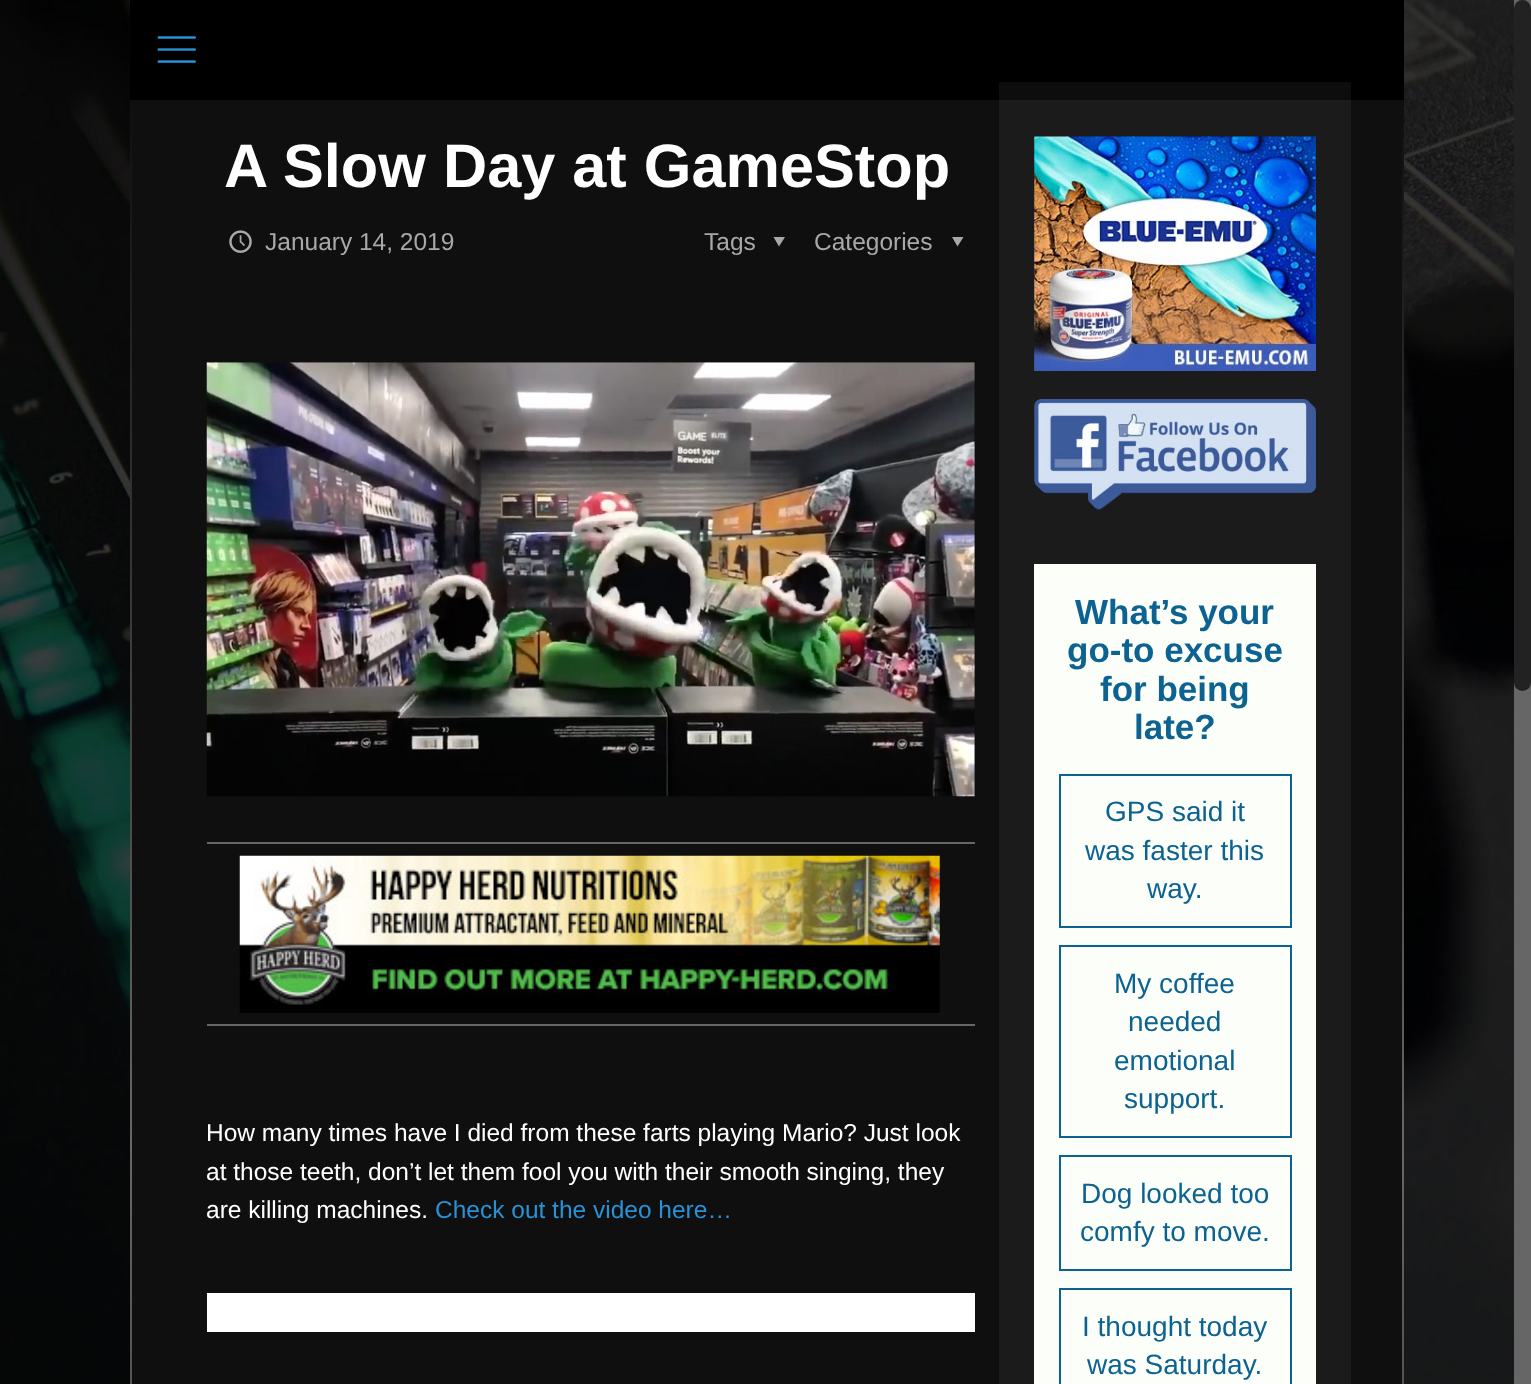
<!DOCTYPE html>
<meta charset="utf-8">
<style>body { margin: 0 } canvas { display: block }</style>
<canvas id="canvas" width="1531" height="1384"></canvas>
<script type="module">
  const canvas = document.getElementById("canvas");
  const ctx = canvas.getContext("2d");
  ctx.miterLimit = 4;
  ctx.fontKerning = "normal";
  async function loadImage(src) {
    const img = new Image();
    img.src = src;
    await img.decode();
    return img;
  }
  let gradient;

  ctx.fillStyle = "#ffffff";
  ctx.fillRect(0, 0, 1531, 1384);
  ctx.drawImage(await loadImage("img1.png"), 0, 0, 1514, 1384);
  ctx.fillStyle = "#000000";
  ctx.fillRect(130, 0, 1274, 100);
  ctx.drawImage(await loadImage("img2.png"), 157, 36, 39, 27);
  ctx.fillStyle = "#0f0f0f";
  ctx.fillRect(132, 100, 1270, 1284);
  gradient = ctx.createLinearGradient(130, 100, 130, 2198);
  gradient.addColorStop(0, "#0f0f0f");
  gradient.addColorStop(0.5, "#676767");
  gradient.addColorStop(1, "#0f0f0f");
  ctx.fillStyle = gradient;
  ctx.fillRect(130, 100, 2, 1284);
  ctx.font = "bold 61.25px Liberation Sans";
  ctx.fillStyle = "#ffffff";
  ctx.fillText("A Slow Day at GameStop", 224, 187);
  ctx.drawImage(await loadImage("img3.png"), 229, 230, 23, 23);
  ctx.font = "24.5px Liberation Sans";
  ctx.fillStyle = "#a8a8a8";
  ctx.fillText("January 14, 2019", 265, 250);
  ctx.fillText("Tags", 704, 250);
  ctx.beginPath();
  ctx.moveTo(785, 237);
  ctx.lineTo(779, 246.5);
  ctx.lineTo(773.5, 237);
  ctx.closePath();
  ctx.fill();
  ctx.fillText("Categories", 814, 250);
  ctx.beginPath();
  ctx.moveTo(963.5, 237);
  ctx.lineTo(957.5, 246.5);
  ctx.lineTo(952, 237);
  ctx.closePath();
  ctx.fill();
  ctx.drawImage(await loadImage("img4.png"), 206, 362, 769, 435);
  ctx.fillStyle = "#666666";
  ctx.fillRect(207, 842, 768, 2);
  ctx.fillRect(207, 1024, 768, 2);
  ctx.drawImage(await loadImage("img5.png"), 239, 855, 701, 158);
  ctx.fillStyle = "#ffffff";
  ctx.fillText("How many times have I died from these farts playing Mario? Just look", 206, 1141);
  ctx.fillText("at those teeth, don’t let them fool you with their smooth singing, they", 206, 1180);
  ctx.fillText("are killing machines.", 206, 1218);
  ctx.fillStyle = "#2991d6";
  ctx.fillText("Check out the video here…", 435, 1218);
  ctx.fillStyle = "#ffffff";
  ctx.fillRect(207, 1293, 768, 39);
  ctx.fillStyle = "rgba(255, 255, 255, 0.05)";
  ctx.fillRect(999, 82, 352, 1302);
  ctx.drawImage(await loadImage("img6.png"), 1034, 136, 282, 235);
  ctx.drawImage(await loadImage("img7.png"), 1034, 399, 282, 111);
  ctx.fillStyle = "#fbfef9";
  ctx.fillRect(1034, 564, 282, 820);
  ctx.font = "bold 35px Liberation Sans";
  ctx.fillStyle = "#0c6291";
  ctx.fillText("What’s your", 1075, 624);
  ctx.fillText("go-to excuse", 1067, 662);
  ctx.fillText("for being", 1100, 701);
  ctx.fillText("late?", 1134, 739);
  ctx.strokeStyle = "#0c6291";
  ctx.lineWidth = 2;
  ctx.strokeRect(1060, 775, 231, 152);
  ctx.font = "28px Liberation Sans";
  ctx.fillText("GPS said it", 1105, 821);
  ctx.fillText("was faster this", 1085, 860);
  ctx.fillText("way.", 1147, 898);
  ctx.strokeRect(1060, 946, 231, 191);
  ctx.fillText("My coffee", 1114, 993);
  ctx.fillText("needed", 1128, 1031);
  ctx.fillText("emotional", 1114, 1070);
  ctx.fillText("support.", 1124, 1108);
  ctx.strokeRect(1060, 1156, 231, 114);
  ctx.fillText("Dog looked too", 1081, 1203);
  ctx.fillText("comfy to move.", 1080, 1241);
  ctx.strokeRect(1060, 1289, 231, 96);
  ctx.fillText("I thought today", 1082, 1336);
  ctx.fillText("was Saturday.", 1087, 1374);
  gradient = ctx.createLinearGradient(1403, 100, 1403, 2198);
  gradient.addColorStop(0, "#0f0f0f");
  gradient.addColorStop(0.5, "#676767");
  gradient.addColorStop(1, "#0f0f0f");
  ctx.fillStyle = gradient;
  ctx.fillRect(1402, 100, 2, 1284);
  ctx.fillStyle = "#666666";
  ctx.fillRect(1514, 0, 17, 1384);
  ctx.fillStyle = "#222222";
  ctx.beginPath();
  ctx.roundRect(1514, 0, 17, 691, 8.5);
  ctx.fill();
</script>
